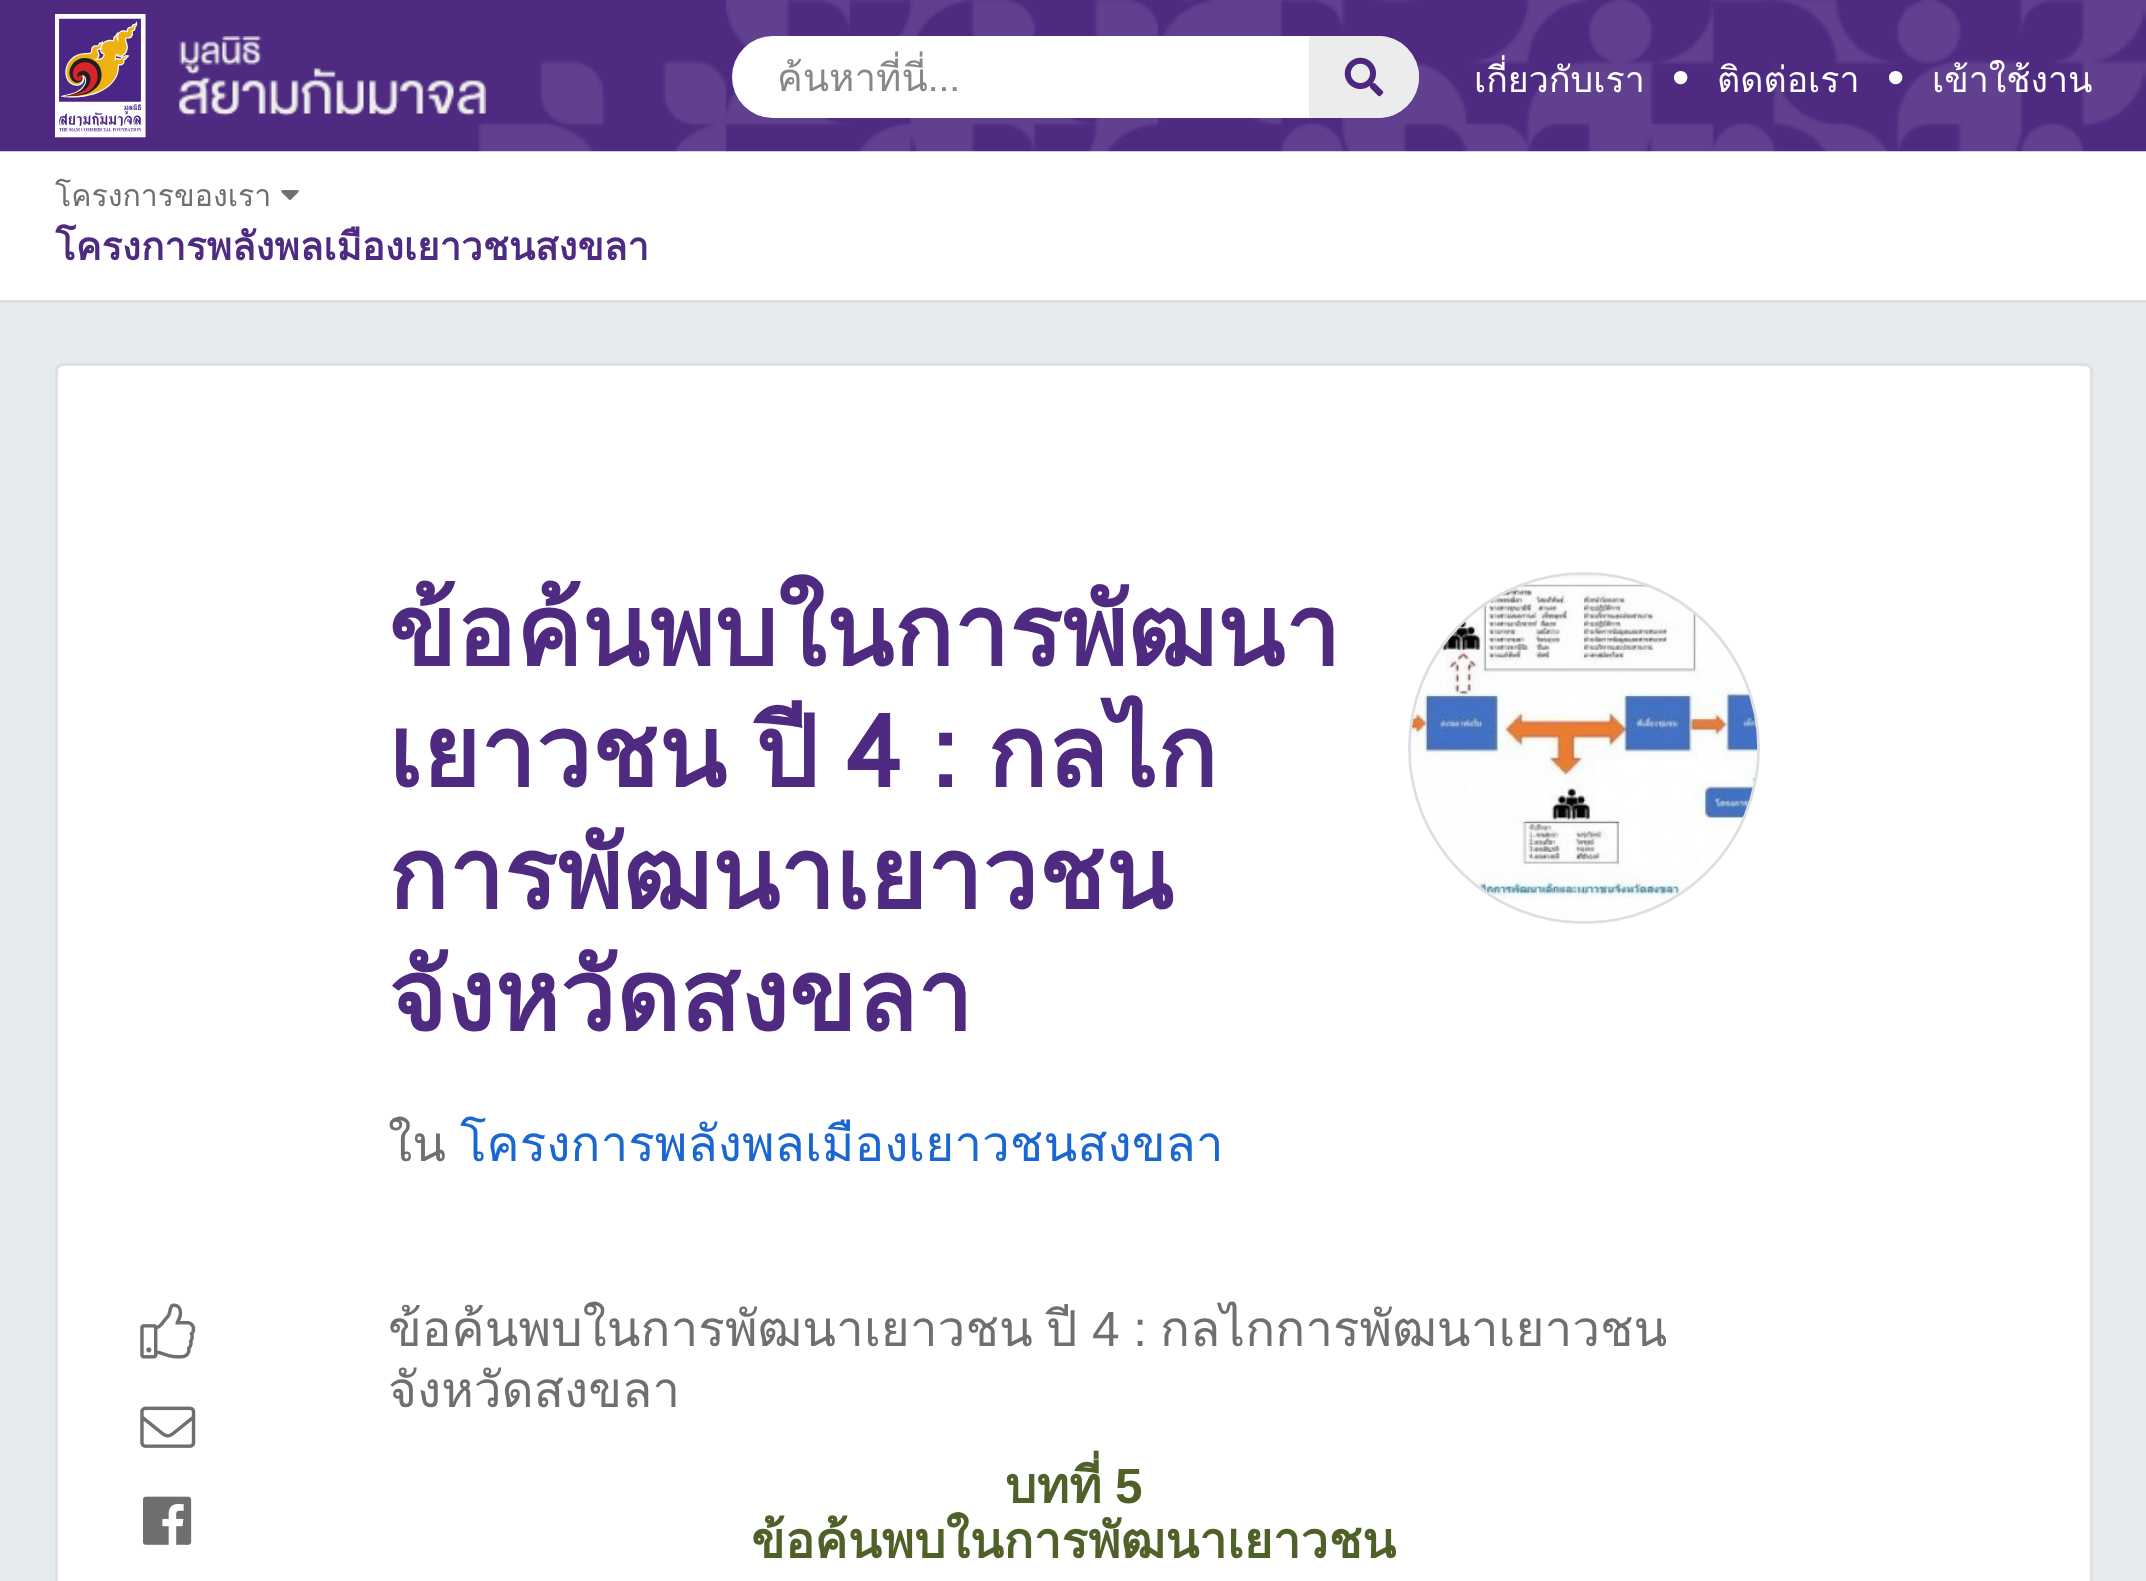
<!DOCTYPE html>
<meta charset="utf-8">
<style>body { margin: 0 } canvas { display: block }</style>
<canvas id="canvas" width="2146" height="1581"></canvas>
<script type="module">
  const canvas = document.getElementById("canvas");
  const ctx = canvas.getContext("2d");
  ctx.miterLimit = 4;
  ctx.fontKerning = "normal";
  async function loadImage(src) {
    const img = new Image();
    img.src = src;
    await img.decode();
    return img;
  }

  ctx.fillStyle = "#e6ebee";
  ctx.fillRect(0, 0, 2146, 1581);
  ctx.fillStyle = "#ffffff";
  ctx.fillRect(0, 151, 2146, 149);
  ctx.drawImage(await loadImage("img1.png"), 0, 0, 2146, 152);
  ctx.drawImage(await loadImage("img2.png"), 55, 14, 91, 124);
  ctx.drawImage(await loadImage("img3.png"), 179, 36, 308, 80);
  ctx.beginPath();
  ctx.roundRect(732, 36, 687, 82, 41);
  ctx.fill();
  ctx.save();
  ctx.beginPath();
  ctx.rect(778, 47, 416, 60);
  ctx.clip();
  ctx.font = "38.5px Loma";
  ctx.fillStyle = "#888888";
  ctx.fillText("ค้นหาที่นี่...", 777, 91);
  ctx.restore();
  ctx.fillStyle = "#ececec";
  ctx.beginPath();
  ctx.roundRect(1309, 36, 110, 82, [0, 41, 41, 0]);
  ctx.fill();
  ctx.drawImage(await loadImage("img4.png"), 1344, 57, 40, 40);
  ctx.font = "35.75px Loma";
  ctx.fillStyle = "#ffffff";
  ctx.fillText("เกี่ยวกับเรา", 1474, 92);
  ctx.font = "49.5px Liberation Sans";
  ctx.fillText("•", 1672, 94);
  ctx.font = "35.75px Loma";
  ctx.fillText("ติดต่อเรา", 1717, 92);
  ctx.font = "49.5px Liberation Sans";
  ctx.fillText("•", 1887, 94);
  ctx.font = "35.75px Loma";
  ctx.fillText("เข้าใช้งาน", 1932, 92);
  ctx.fillStyle = "#dddfe2";
  ctx.fillRect(0, 300, 2146, 3);
  ctx.font = "30.25px Loma";
  ctx.fillStyle = "#6f6f6f";
  ctx.fillText("โครงการของเรา", 55, 206);
  ctx.drawImage(await loadImage("img5.png"), 281, 190, 18, 10);
  ctx.font = "bold 38.5px Loma";
  ctx.fillStyle = "#4e2a81";
  ctx.fillText("โครงการพลังพลเมืองเยาวชนสงขลา", 55, 260);
  ctx.fillStyle = "#ffffff";
  ctx.beginPath();
  ctx.roundRect(56.5, 364.5, 2035, 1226, 6.5);
  ctx.fill();
  ctx.strokeStyle = "#dddfe2";
  ctx.lineWidth = 3;
  ctx.stroke();
  ctx.font = "bold 99px Loma";
  ctx.fillStyle = "#4e2a81";
  ctx.fillText("ข้อค้นพบในการพัฒนา", 388, 666);
  ctx.wordSpacing = "-4.5px";
  ctx.fillText("เยาวชน ปี 4 : กลไก", 388, 787);
  ctx.wordSpacing = "0px";
  ctx.fillText("การพัฒนาเยาวชน", 388, 909);
  ctx.fillText("จังหวัดสงขลา", 388, 1031);
  ctx.font = "49.5px Loma";
  ctx.fillStyle = "#6f6f6f";
  ctx.fillText("ใน", 388, 1161);
  ctx.fillStyle = "#1a66d2";
  ctx.fillText("โครงการพลังพลเมืองเยาวชนสงขลา", 460, 1161);
  ctx.beginPath();
  ctx.arc(1584, 748, 174.5, 0, Math.PI * 2);
  ctx.stroke();
  ctx.drawImage(await loadImage("img6.png"), 1411, 575, 347, 346);
  ctx.drawImage(await loadImage("img7.png"), 140, 1303, 56, 56);
  ctx.drawImage(await loadImage("img8.png"), 140, 1406, 56, 42);
  ctx.drawImage(await loadImage("img9.png"), 143, 1496, 49, 49);
  ctx.fillStyle = "#6f6f6f";
  ctx.fillText("ข้อค้นพบในการพัฒนาเยาวชน", 388, 1346);
  ctx.fillText("ปี", 1046, 1346);
  ctx.font = "49.5px Liberation Sans";
  ctx.fillText("4 :", 1092, 1346);
  ctx.font = "49.5px Loma";
  ctx.fillText("กลไกการพัฒนาเยาวชน", 1160, 1346);
  ctx.fillText("จังหวัดสงขลา", 388, 1407);
  ctx.font = "bold 49.5px Loma";
  ctx.fillStyle = "#4f6128";
  ctx.fillText("บทที่", 1005, 1503);
  ctx.font = "bold 49.5px Liberation Sans";
  ctx.fillText("5", 1115, 1503);
  ctx.font = "bold 49.5px Loma";
  ctx.fillText("ข้อค้นพบในการพัฒนาเยาวชน", 751, 1558);
</script>
